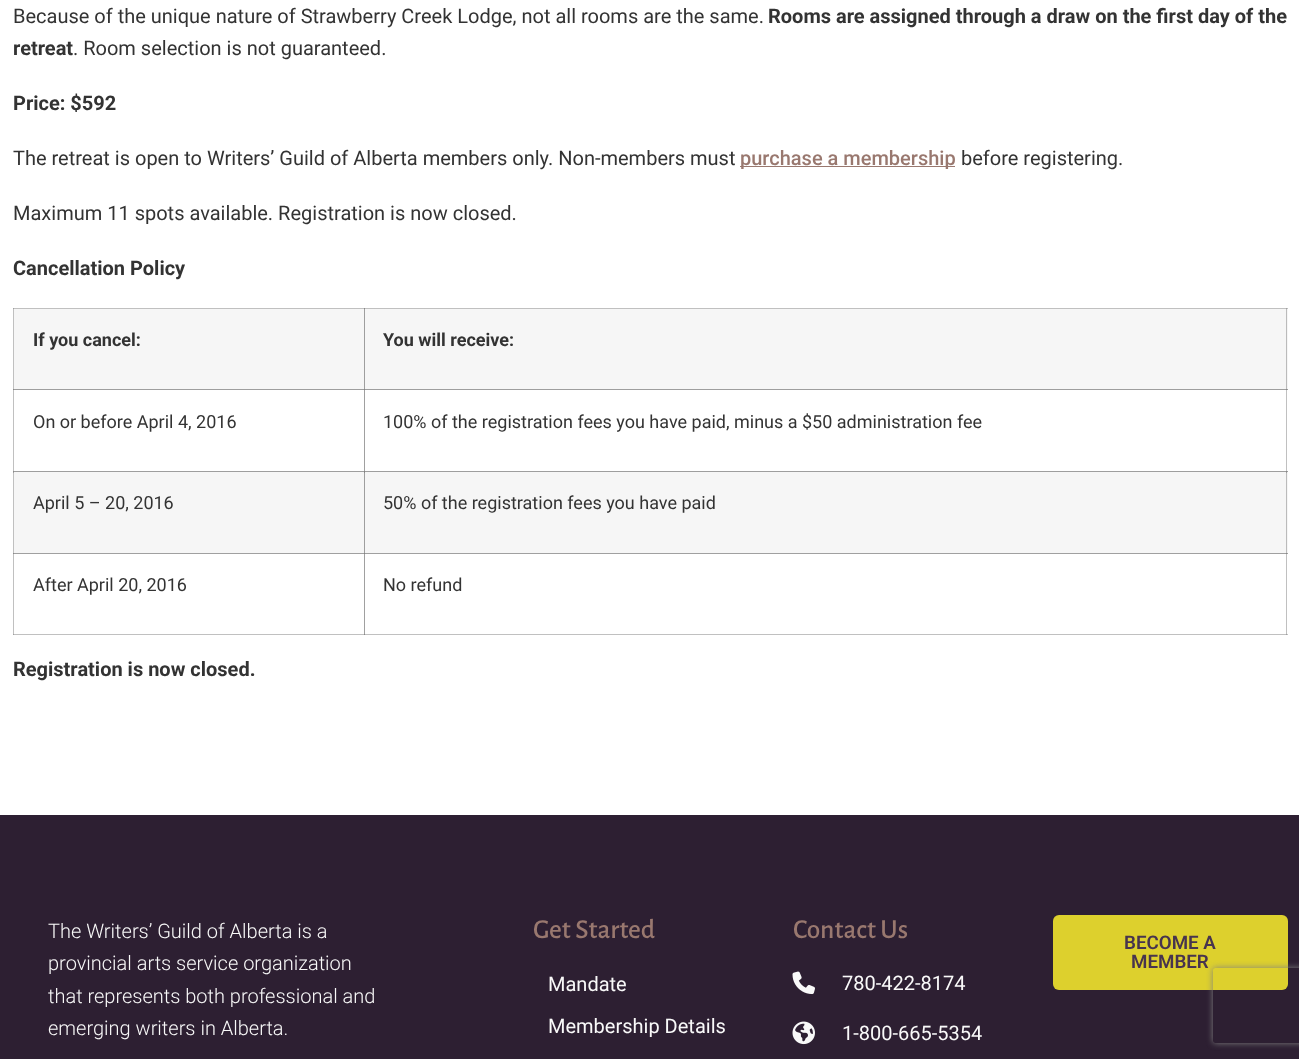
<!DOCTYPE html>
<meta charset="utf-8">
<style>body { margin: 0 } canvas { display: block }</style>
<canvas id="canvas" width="1299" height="1059"></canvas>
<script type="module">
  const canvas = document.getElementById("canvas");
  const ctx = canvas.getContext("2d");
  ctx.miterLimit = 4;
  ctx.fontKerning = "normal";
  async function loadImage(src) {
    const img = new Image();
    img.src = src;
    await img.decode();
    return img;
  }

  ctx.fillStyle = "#ffffff";
  ctx.fillRect(0, 0, 1299, 1059);
  ctx.fillStyle = "#c0c0c0";
  ctx.fillRect(13, 308, 1, 327);
  ctx.fillRect(13, 308, 1275, 1);
  ctx.fillStyle = "#a0a0a0";
  ctx.fillRect(13, 308, 1, 1);
  ctx.fillStyle = "#888888";
  ctx.fillRect(13, 389, 1, 1);
  ctx.fillStyle = "#a0a0a0";
  ctx.fillRect(364, 389, 1, 84);
  ctx.fillStyle = "#c0c0c0";
  ctx.fillRect(1286, 389, 1, 84);
  ctx.fillStyle = "#a0a0a0";
  ctx.fillRect(13, 471, 1, 2);
  ctx.fillStyle = "#888888";
  ctx.fillRect(13, 471, 1, 1);
  ctx.fillStyle = "#c0c0c0";
  ctx.fillRect(13, 634, 352, 1);
  ctx.fillStyle = "#a0a0a0";
  ctx.fillRect(13, 634, 1, 1);
  ctx.fillRect(13, 553, 352, 1);
  ctx.fillStyle = "#888888";
  ctx.fillRect(13, 553, 1, 1);
  ctx.fillStyle = "#a0a0a0";
  ctx.fillRect(364, 553, 1, 82);
  ctx.fillStyle = "#c0c0c0";
  ctx.fillRect(364, 634, 924, 1);
  ctx.fillStyle = "#888888";
  ctx.fillRect(364, 634, 1, 1);
  ctx.fillStyle = "#c0c0c0";
  ctx.fillRect(1286, 553, 1, 82);
  ctx.fillStyle = "#a0a0a0";
  ctx.fillRect(1286, 634, 1, 1);
  ctx.font = "20px Roboto";
  ctx.fillStyle = "#333333";
  ctx.fillText("Because of the unique nature of Strawberry Creek Lodge, not all rooms are the same.", 13, 23);
  ctx.font = "bold 20px Roboto";
  ctx.fillText("Rooms are assigned through a draw on the first day of the", 768, 23);
  ctx.fillText("retreat", 13, 55);
  ctx.font = "20px Roboto";
  ctx.fillText(". Room selection is not guaranteed.", 73, 55);
  ctx.font = "bold 20px Roboto";
  ctx.fillText("Price: $592", 13, 110);
  ctx.font = "20px Roboto";
  ctx.fillText("The retreat is open to Writers’ Guild of Alberta members only. Non-members must", 13, 165);
  ctx.fillStyle = "#99786f";
  ctx.fillRect(740, 166, 215, 1);
  ctx.font = "500 20px Roboto";
  ctx.fillText("purchase a membership", 740, 165);
  ctx.font = "20px Roboto";
  ctx.fillStyle = "#333333";
  ctx.fillText("before registering.", 961, 165);
  ctx.fillText("Maximum 11 spots available. Registration is now closed.", 13, 220);
  ctx.font = "bold 20px Roboto";
  ctx.fillText("Cancellation Policy", 13, 275);
  ctx.fillStyle = "#f6f6f6";
  ctx.fillRect(14, 309, 350, 80);
  ctx.fillStyle = "#9e9e9e";
  ctx.fillRect(14, 389, 350, 1);
  ctx.font = "bold 18px Roboto";
  ctx.fillStyle = "#333333";
  ctx.fillText("If you cancel:", 33, 346);
  ctx.fillStyle = "#f6f6f6";
  ctx.fillRect(365, 309, 923, 80);
  ctx.fillStyle = "#9e9e9e";
  ctx.fillRect(364, 309, 1, 81);
  ctx.fillStyle = "#bbbbbb";
  ctx.fillRect(1286, 309, 1, 81);
  ctx.fillStyle = "#888888";
  ctx.fillRect(364, 308, 1, 1);
  ctx.fillStyle = "#a0a0a0";
  ctx.fillRect(1286, 308, 1, 1);
  ctx.fillStyle = "#333333";
  ctx.fillText("You will receive:", 383, 346);
  ctx.font = "18px Roboto";
  ctx.fillText("On or before April 4, 2016", 33, 428);
  ctx.fillStyle = "#9e9e9e";
  ctx.fillRect(364, 389, 924, 1);
  ctx.fillStyle = "#818181";
  ctx.fillRect(364, 389, 1, 1);
  ctx.fillStyle = "#888888";
  ctx.fillRect(1286, 389, 1, 1);
  ctx.fillStyle = "#333333";
  ctx.fillText("100% of the registration fees you have paid, minus a $50 administration fee", 383, 428);
  ctx.fillStyle = "#f6f6f6";
  ctx.fillRect(14, 472, 350, 81);
  ctx.fillStyle = "#9e9e9e";
  ctx.fillRect(14, 471, 350, 1);
  ctx.fillStyle = "#333333";
  ctx.fillText("April 5 – 20, 2016", 33, 509);
  ctx.fillStyle = "#f6f6f6";
  ctx.fillRect(365, 472, 923, 81);
  ctx.fillStyle = "#9e9e9e";
  ctx.fillRect(364, 471, 1, 82);
  ctx.fillStyle = "#888888";
  ctx.fillRect(364, 471, 1, 2);
  ctx.fillStyle = "#bbbbbb";
  ctx.fillRect(1286, 471, 1, 82);
  ctx.fillStyle = "#9e9e9e";
  ctx.fillRect(1286, 471, 1, 2);
  ctx.fillRect(364, 471, 924, 1);
  ctx.fillStyle = "#818181";
  ctx.fillRect(364, 471, 1, 1);
  ctx.fillStyle = "#888888";
  ctx.fillRect(1286, 471, 1, 1);
  ctx.fillStyle = "#333333";
  ctx.fillText("50% of the registration fees you have paid", 383, 509);
  ctx.fillText("After April 20, 2016", 33, 591);
  ctx.fillStyle = "#a0a0a0";
  ctx.fillRect(364, 553, 924, 1);
  ctx.fillStyle = "#818181";
  ctx.fillRect(364, 553, 1, 1);
  ctx.fillStyle = "#888888";
  ctx.fillRect(1286, 553, 1, 1);
  ctx.fillStyle = "#333333";
  ctx.fillText("No refund", 383, 591);
  ctx.font = "bold 20px Roboto";
  ctx.fillText("Registration is now closed.", 13, 676);
  ctx.fillStyle = "#2d1f32";
  ctx.fillRect(0, 815, 1299, 244);
  ctx.font = "300 20px Roboto";
  ctx.fillStyle = "#f9f9f9";
  ctx.fillText("The Writers’ Guild of Alberta is a", 48, 938);
  ctx.fillText("provincial arts service organization", 48, 970);
  ctx.fillText("that represents both professional and", 48, 1003);
  ctx.fillText("emerging writers in Alberta.", 48, 1035);
  ctx.font = "500 27.5px Alegreya Sans";
  ctx.fillStyle = "#99786f";
  ctx.fillText("Get Started", 533, 938);
  ctx.font = "20px Roboto";
  ctx.fillStyle = "#f9f9f9";
  ctx.fillText("Mandate", 548, 991);
  ctx.fillText("Membership Details", 548, 1033);
  ctx.font = "500 27.5px Alegreya Sans";
  ctx.fillStyle = "#99786f";
  ctx.fillText("Contact Us", 793, 938);
  ctx.drawImage(await loadImage("img1.png"), 792, 971, 23, 24);
  ctx.font = "20px Roboto";
  ctx.fillStyle = "#f9f9f9";
  ctx.fillText("780-422-8174", 842, 990);
  ctx.drawImage(await loadImage("img2.png"), 792, 1021, 23, 24);
  ctx.fillText("1-800-665-5354", 842, 1040);
  ctx.fillStyle = "#ddd02d";
  ctx.beginPath();
  ctx.roundRect(1053, 915, 235, 75, 6);
  ctx.fill();
  ctx.font = "600 18.75px Roboto";
  ctx.fillStyle = "#47344e";
  ctx.fillText("BECOME A", 1124, 949);
  ctx.fillText("MEMBER", 1131, 968);
  ctx.save();
  ctx.beginPath();
  ctx.moveTo(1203, 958);
  ctx.lineTo(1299, 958);
  ctx.lineTo(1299, 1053);
  ctx.lineTo(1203, 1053);
  ctx.closePath();
  ctx.moveTo(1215.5, 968);
  ctx.lineTo(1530.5, 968);
  ctx.bezierCurveTo(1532, 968, 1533, 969, 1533, 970.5);
  ctx.lineTo(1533, 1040.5);
  ctx.bezierCurveTo(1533, 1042, 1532, 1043, 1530.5, 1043);
  ctx.lineTo(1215.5, 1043);
  ctx.bezierCurveTo(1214, 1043, 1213, 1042, 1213, 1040.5);
  ctx.lineTo(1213, 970.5);
  ctx.bezierCurveTo(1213, 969, 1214, 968, 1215.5, 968);
  ctx.closePath();
  ctx.clip("evenodd");
  ctx.fillStyle = "#808080";
  ctx.filter = "blur(3px)";
  ctx.beginPath();
  ctx.roundRect(1213, 968, 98, 75, 2.5);
  ctx.fill();
  ctx.filter = "none";
  ctx.restore();
</script>
